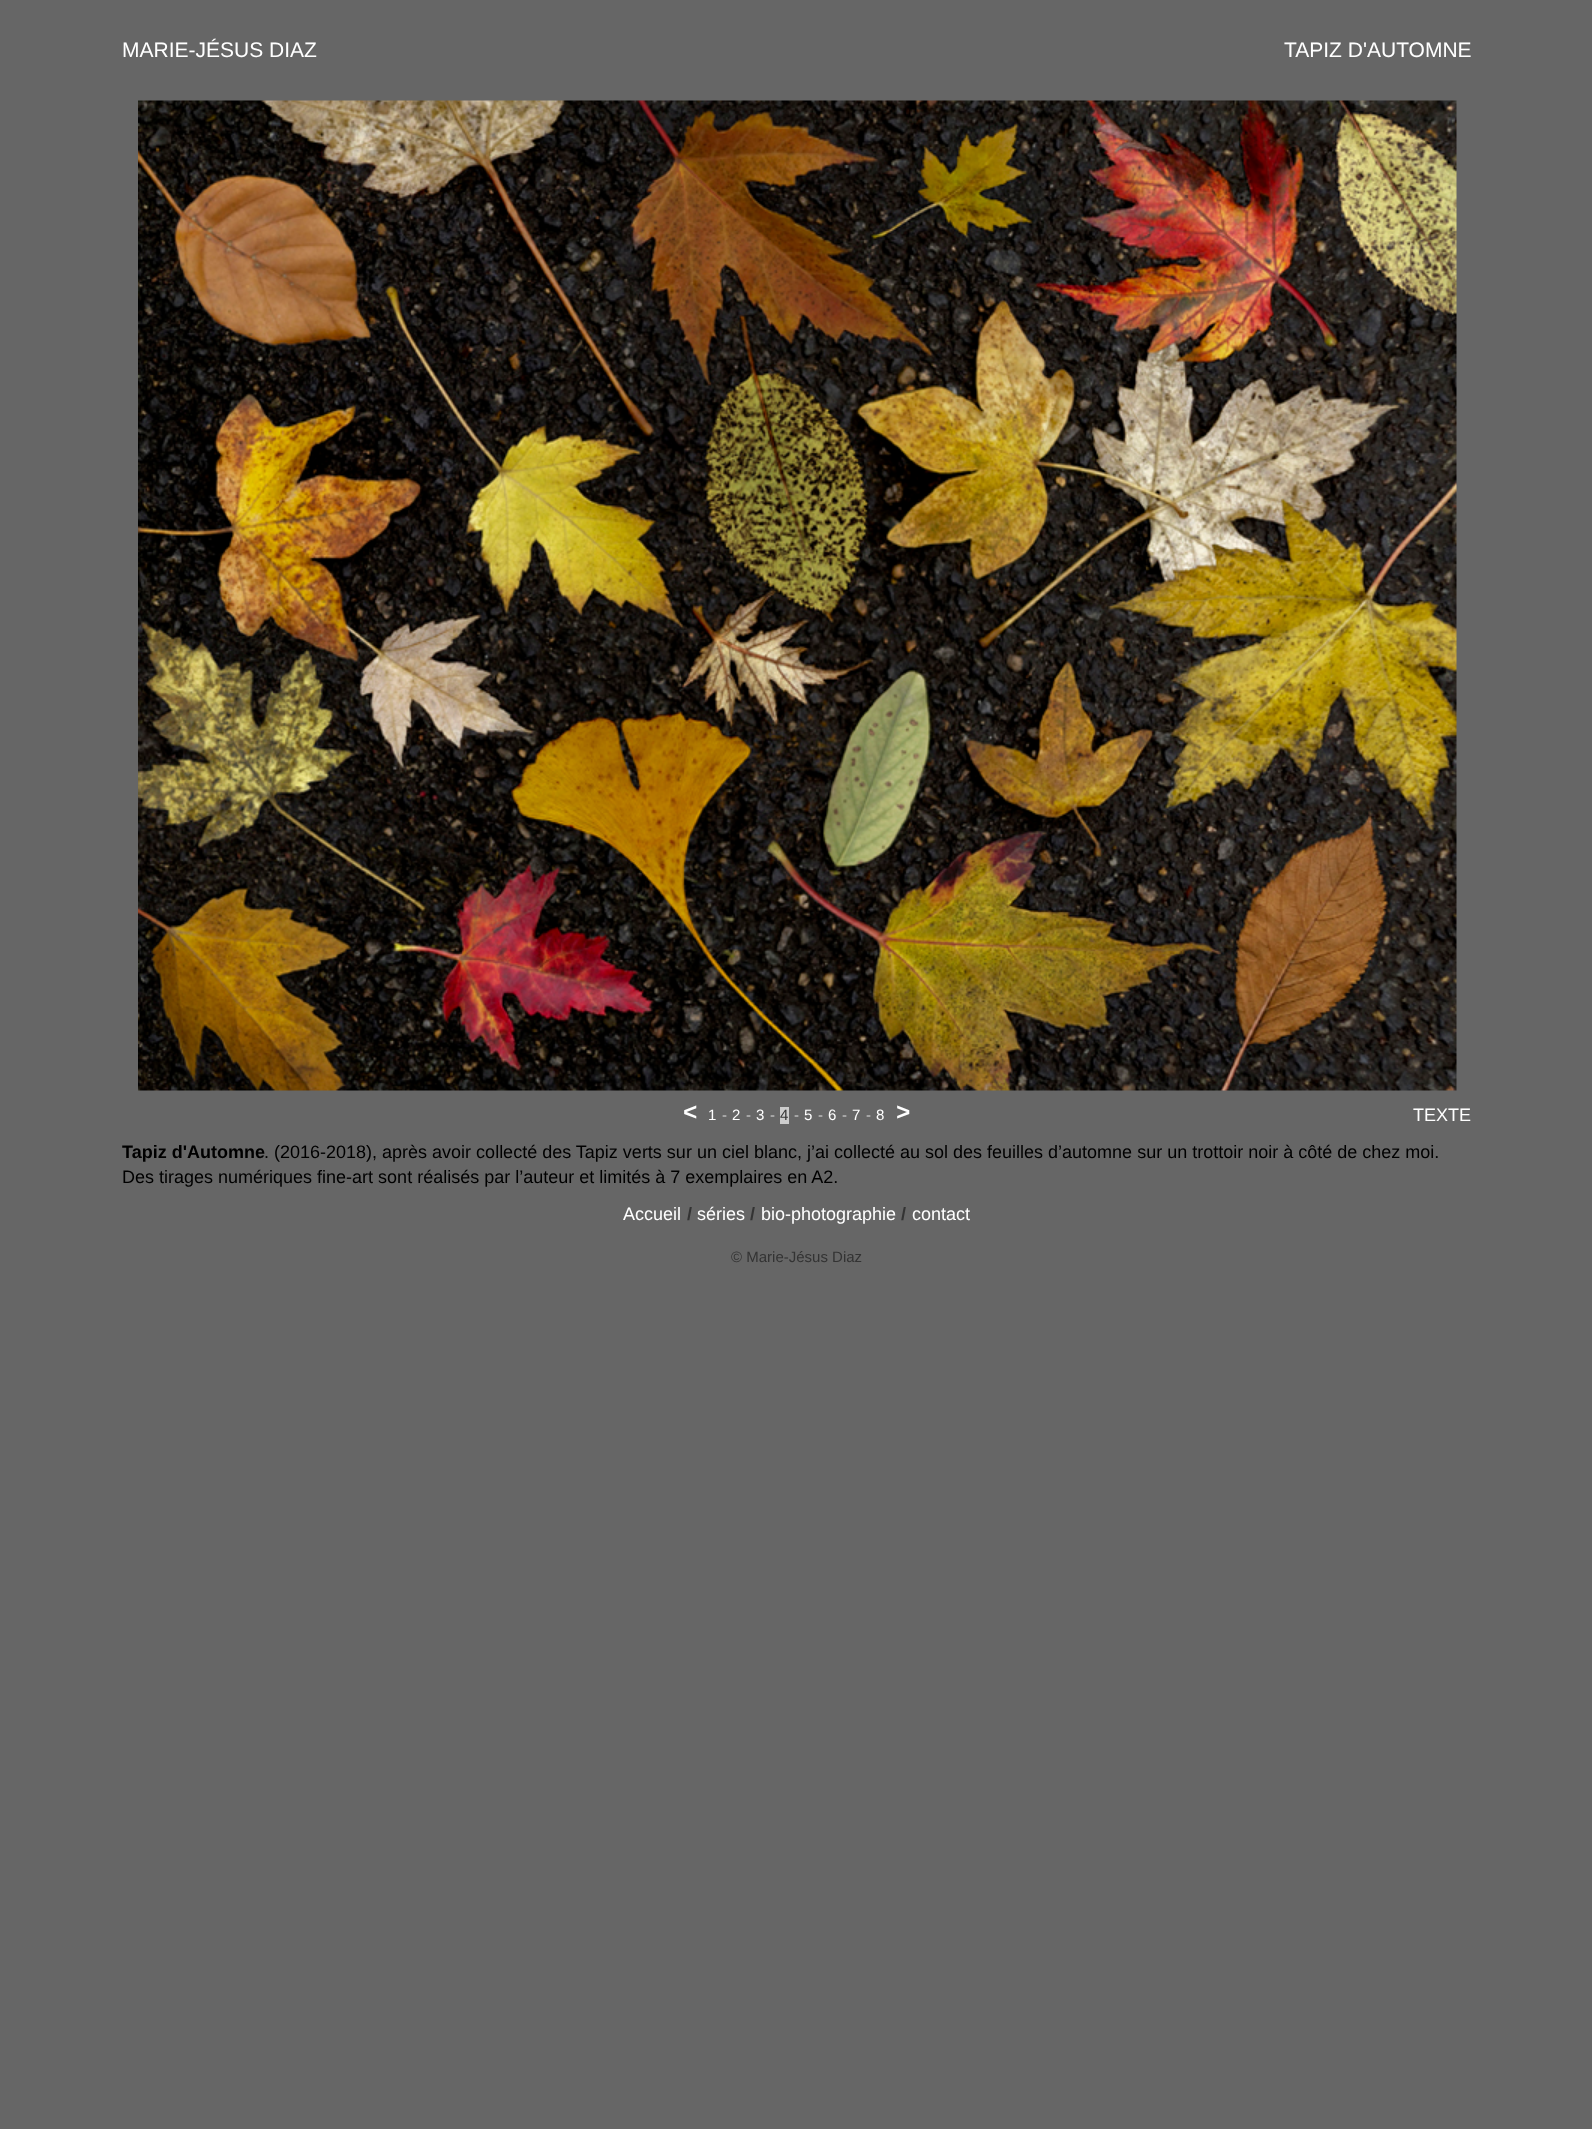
<!DOCTYPE html>
<meta charset="utf-8">
<style>body { margin: 0 } canvas { display: block }</style>
<canvas id="canvas" width="1592" height="2129"></canvas>
<script type="module">
  const canvas = document.getElementById("canvas");
  const ctx = canvas.getContext("2d");
  ctx.miterLimit = 4;
  ctx.fontKerning = "normal";
  async function loadImage(src) {
    const img = new Image();
    img.src = src;
    await img.decode();
    return img;
  }

  ctx.fillStyle = "#666666";
  ctx.fillRect(0, 0, 1592, 2129);
  ctx.font = "21px Liberation Sans";
  ctx.fillStyle = "#ffffff";
  ctx.fillText("MARIE-JÉSUS DIAZ", 122, 57);
  ctx.fillText("TAPIZ D'AUTOMNE", 1284, 57);
  ctx.drawImage(await loadImage("img1.png"), 138, 100, 1319, 991);
  ctx.font = "bold 24px Liberation Mono";
  ctx.fillText("<", 683, 1120);
  ctx.font = "15px Liberation Sans";
  ctx.fillText("1", 708, 1120);
  ctx.fillStyle = "#cccccc";
  ctx.fillText("-", 722, 1120);
  ctx.fillStyle = "#ffffff";
  ctx.fillText("2", 732, 1120);
  ctx.fillStyle = "#cccccc";
  ctx.fillText("-", 746, 1120);
  ctx.fillStyle = "#ffffff";
  ctx.fillText("3", 756, 1120);
  ctx.fillStyle = "#cccccc";
  ctx.fillText("-", 770, 1120);
  ctx.fillRect(780, 1107, 9, 17);
  ctx.fillStyle = "#333333";
  ctx.fillText("4", 780, 1120);
  ctx.fillStyle = "#cccccc";
  ctx.fillText("-", 794, 1120);
  ctx.fillStyle = "#ffffff";
  ctx.fillText("5", 804, 1120);
  ctx.fillStyle = "#cccccc";
  ctx.fillText("-", 818, 1120);
  ctx.fillStyle = "#ffffff";
  ctx.fillText("6", 828, 1120);
  ctx.fillStyle = "#cccccc";
  ctx.fillText("-", 842, 1120);
  ctx.fillStyle = "#ffffff";
  ctx.fillText("7", 852, 1120);
  ctx.fillStyle = "#cccccc";
  ctx.fillText("-", 866, 1120);
  ctx.fillStyle = "#ffffff";
  ctx.fillText("8", 876, 1120);
  ctx.font = "bold 24px Liberation Mono";
  ctx.fillText(">", 896, 1120);
  ctx.font = "18px Liberation Sans";
  ctx.fillText("TEXTE", 1413, 1121);
  ctx.font = "bold 18px Liberation Sans";
  ctx.fillStyle = "#000000";
  ctx.fillText("Tapiz d'Automne", 122, 1158);
  ctx.font = "18px Liberation Sans";
  ctx.fillText(". (2016-2018), après avoir collecté des Tapiz verts sur un ciel blanc, j’ai collecté au sol des feuilles d’automne sur un trottoir noir à côté de chez moi.", 264, 1158);
  ctx.fillText("Des tirages numériques fine-art sont réalisés par l’auteur et limités à 7 exemplaires en A2.", 122, 1183);
  ctx.fillStyle = "#ffffff";
  ctx.fillText("Accueil", 623, 1220);
  ctx.font = "bold 18px Liberation Sans";
  ctx.fillStyle = "#333333";
  ctx.fillText("/", 687, 1220);
  ctx.font = "18px Liberation Sans";
  ctx.fillStyle = "#ffffff";
  ctx.fillText("séries", 697, 1220);
  ctx.font = "bold 18px Liberation Sans";
  ctx.fillStyle = "#333333";
  ctx.fillText("/", 750, 1220);
  ctx.font = "18px Liberation Sans";
  ctx.fillStyle = "#ffffff";
  ctx.fillText("bio-photographie", 761, 1220);
  ctx.font = "bold 18px Liberation Sans";
  ctx.fillStyle = "#333333";
  ctx.fillText("/", 901, 1220);
  ctx.font = "18px Liberation Sans";
  ctx.fillStyle = "#ffffff";
  ctx.fillText("contact", 912, 1220);
  ctx.font = "15px Liberation Sans";
  ctx.fillStyle = "#333333";
  ctx.fillText("© Marie-Jésus Diaz", 731, 1262);
</script>
